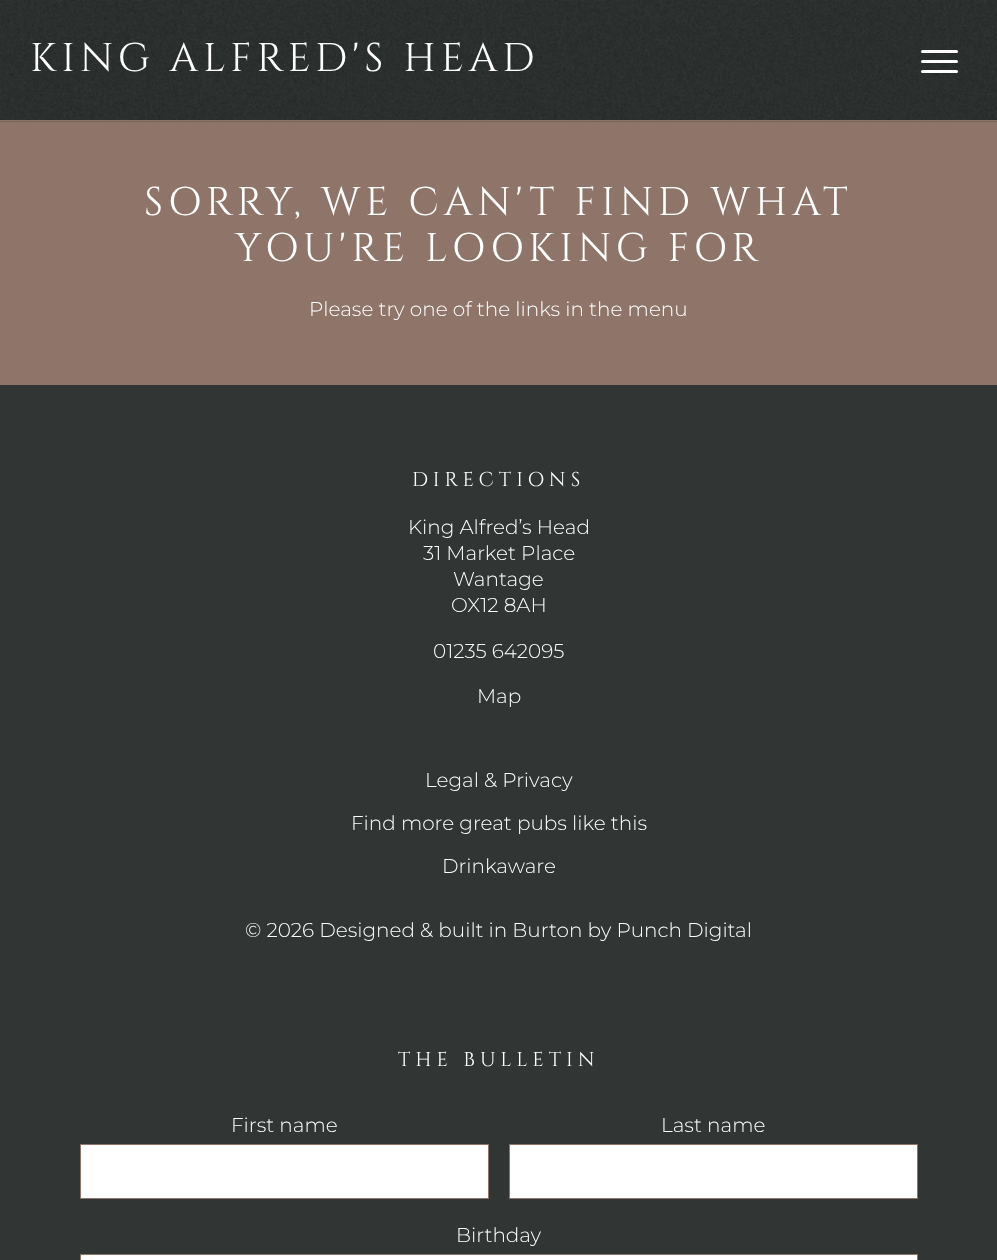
<!DOCTYPE html>
<meta charset="utf-8">
<style>body { margin: 0 } canvas { display: block }</style>
<canvas id="canvas" width="997" height="1260"></canvas>
<script type="module">
  const canvas = document.getElementById("canvas");
  const ctx = canvas.getContext("2d");
  ctx.miterLimit = 4;
  ctx.fontKerning = "normal";
  async function loadImage(src) {
    const img = new Image();
    img.src = src;
    await img.decode();
    return img;
  }

  ctx.fillStyle = "#313533";
  ctx.fillRect(0, 0, 997, 1260);
  ctx.fillStyle = "#8f7569";
  ctx.fillRect(0, 121, 997, 264);
  ctx.drawImage(await loadImage("img1.png"), 0, 0, 997, 122);
  ctx.fillRect(0, 120, 997, 1);
  ctx.letterSpacing = "5px";
  ctx.font = "40px Cinzel";
  ctx.fillStyle = "#ffffff";
  ctx.fillText("KING ALFRED'S HEAD", 30, 71);
  ctx.beginPath();
  ctx.roundRect(921, 50, 37, 3, 1.5);
  ctx.fill();
  ctx.beginPath();
  ctx.roundRect(921, 60, 37, 3, 1.5);
  ctx.fill();
  ctx.beginPath();
  ctx.roundRect(921, 70, 37, 3, 1.5);
  ctx.fill();
  ctx.fillText("SORRY, WE CAN'T FIND WHAT", 144, 215);
  ctx.fillText("YOU'RE LOOKING FOR", 235, 261);
  ctx.letterSpacing = "0px";
  ctx.font = "100 20px Montserrat";
  ctx.fillText("Please try one of the links in the menu", 309, 316);
  ctx.letterSpacing = "5px";
  ctx.font = "20px Cinzel";
  ctx.fillText("DIRECTIONS", 412, 486);
  ctx.letterSpacing = "0px";
  ctx.font = "100 20px Montserrat";
  ctx.fillText("King Alfred’s Head", 408, 534);
  ctx.fillText("31 Market Place", 423, 560);
  ctx.fillText("Wantage", 453, 586);
  ctx.fillText("OX12 8AH", 451, 612);
  ctx.fillText("01235 642095", 433, 658);
  ctx.fillText("Map", 477, 703);
  ctx.fillText("Legal & Privacy", 425, 787);
  ctx.fillText("Find more great pubs like this", 351, 830);
  ctx.fillText("Drinkaware", 442, 873);
  ctx.fillText("© 2026 Designed & built in Burton by Punch Digital", 245, 937);
  ctx.letterSpacing = "5px";
  ctx.font = "20px Cinzel";
  ctx.fillText("THE BULLETIN", 398, 1066);
  ctx.letterSpacing = "0px";
  ctx.font = "100 20px Montserrat";
  ctx.fillText("First name", 231, 1132);
  ctx.beginPath();
  ctx.rect(80.5, 1144.5, 408, 54);
  ctx.fill();
  ctx.strokeStyle = "#8f7569";
  ctx.stroke();
  ctx.fillText("Last name", 661, 1132);
  ctx.beginPath();
  ctx.rect(509.5, 1144.5, 408, 54);
  ctx.fill();
  ctx.stroke();
  ctx.fillText("Birthday", 456, 1242);
  ctx.beginPath();
  ctx.rect(80.5, 1254.5, 837, 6);
  ctx.fill();
  ctx.stroke();
</script>
